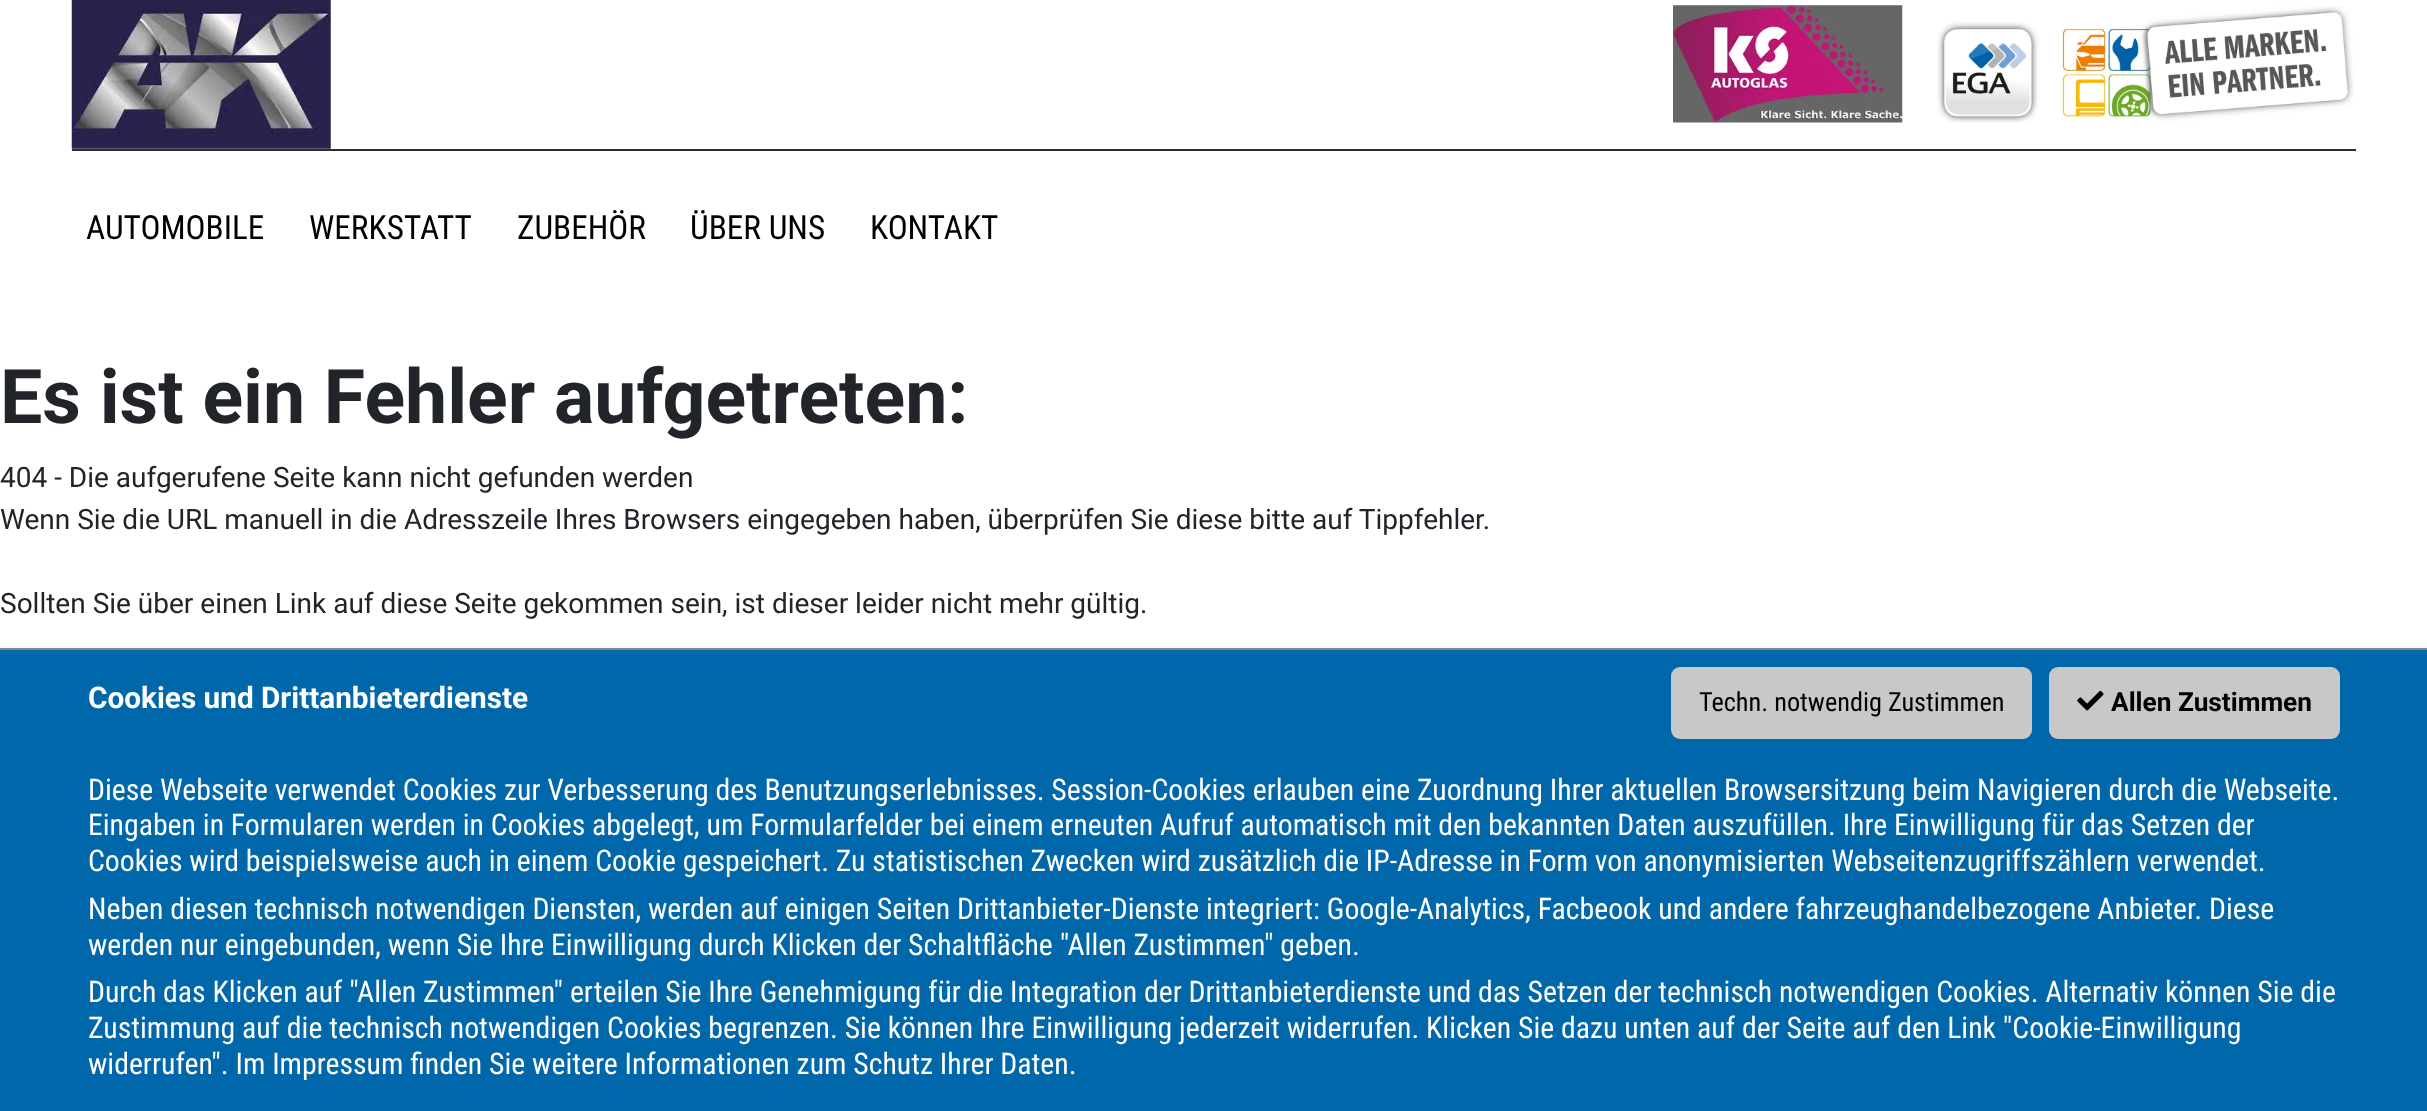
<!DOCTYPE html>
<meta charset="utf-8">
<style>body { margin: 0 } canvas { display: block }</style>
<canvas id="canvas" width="2427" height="1111"></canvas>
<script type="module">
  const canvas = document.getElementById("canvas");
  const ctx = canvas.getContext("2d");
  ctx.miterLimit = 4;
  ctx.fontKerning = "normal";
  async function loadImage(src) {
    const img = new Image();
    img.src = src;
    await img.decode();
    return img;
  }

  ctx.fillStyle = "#ffffff";
  ctx.fillRect(0, 0, 2427, 1111);
  ctx.drawImage(await loadImage("img1.png"), 71, 0, 260, 149);
  ctx.drawImage(await loadImage("img2.png"), 1673, 5, 230, 118);
  ctx.drawImage(await loadImage("img3.png"), 1937, 6, 417, 117);
  ctx.fillStyle = "#2a2f32";
  ctx.fillRect(72, 149, 2284, 2);
  ctx.font = "33.25px Roboto Condensed";
  ctx.fillStyle = "#000000";
  ctx.fillText("AUTOMOBILE", 86, 239);
  ctx.fillText("WERKSTATT", 309, 239);
  ctx.fillText("ZUBEHÖR", 517, 239);
  ctx.fillText("ÜBER UNS", 690, 239);
  ctx.fillText("KONTAKT", 870, 239);
  ctx.font = "bold 75.25px Roboto";
  ctx.fillStyle = "#212529";
  ctx.fillText("Es ist ein Fehler aufgetreten:", 0, 423);
  ctx.font = "28px Roboto";
  ctx.fillText("404 - Die aufgerufene Seite kann nicht gefunden werden", 0, 487);
  ctx.fillText("Wenn Sie die URL manuell in die Adresszeile Ihres Browsers eingegeben haben, überprüfen Sie diese bitte auf Tippfehler.", 0, 529);
  ctx.fillText("Sollten Sie über einen Link auf diese Seite gekommen sein, ist dieser leider nicht mehr gültig.", 0, 613);
  ctx.fillStyle = "#0067aa";
  ctx.fillRect(0, 650, 2427, 461);
  ctx.fillStyle = "#888888";
  ctx.fillRect(0, 648, 2427, 2);
  ctx.font = "bold 29.75px Roboto";
  ctx.fillStyle = "#ffffff";
  ctx.fillText("Cookies und Drittanbieterdienste", 88, 708);
  ctx.fillStyle = "#c8c8c8";
  ctx.beginPath();
  ctx.roundRect(1671, 667, 361, 72, 9);
  ctx.fill();
  ctx.font = "26.25px Roboto Condensed";
  ctx.fillStyle = "#000000";
  ctx.fillText("Techn. notwendig Zustimmen", 1699, 711);
  ctx.fillStyle = "#c8c8c8";
  ctx.beginPath();
  ctx.roundRect(2049, 667, 291, 72, 9);
  ctx.fill();
  ctx.drawImage(await loadImage("img4.png"), 2077, 690, 27, 21);
  ctx.font = "bold 26.25px Roboto";
  ctx.fillStyle = "#000000";
  ctx.fillText("Allen Zustimmen", 2111, 711);
  ctx.font = "29.75px Roboto Condensed";
  ctx.fillStyle = "#ffffff";
  ctx.fillText("Diese Webseite verwendet Cookies zur Verbesserung des Benutzungserlebnisses. Session-Cookies erlauben eine Zuordnung Ihrer aktuellen Browsersitzung beim Navigieren durch die Webseite.", 88, 800);
  ctx.fillText("Eingaben in Formularen werden in Cookies abgelegt, um Formularfelder bei einem erneuten Aufruf automatisch mit den bekannten Daten auszufüllen. Ihre Einwilligung für das Setzen der", 88, 835);
  ctx.fillText("Cookies wird beispielsweise auch in einem Cookie gespeichert. Zu statistischen Zwecken wird zusätzlich die IP-Adresse in Form von anonymisierten Webseitenzugriffszählern verwendet.", 88, 871);
  ctx.fillText("Neben diesen technisch notwendigen Diensten, werden auf einigen Seiten Drittanbieter-Dienste integriert: Google-Analytics, Facbeook und andere fahrzeughandelbezogene Anbieter. Diese", 88, 919);
  ctx.fillText("werden nur eingebunden, wenn Sie Ihre Einwilligung durch Klicken der Schaltfläche \"Allen Zustimmen\" geben.", 88, 955);
  ctx.fillText("Durch das Klicken auf \"Allen Zustimmen\" erteilen Sie Ihre Genehmigung für die Integration der Drittanbieterdienste und das Setzen der technisch notwendigen Cookies. Alternativ können Sie die", 88, 1002);
  ctx.fillText("Zustimmung auf die technisch notwendigen Cookies begrenzen. Sie können Ihre Einwilligung jederzeit widerrufen. Klicken Sie dazu unten auf der Seite auf den Link \"Cookie-Einwilligung", 88, 1038);
  ctx.fillText("widerrufen\". Im Impressum finden Sie weitere Informationen zum Schutz Ihrer Daten.", 88, 1074);
</script>
